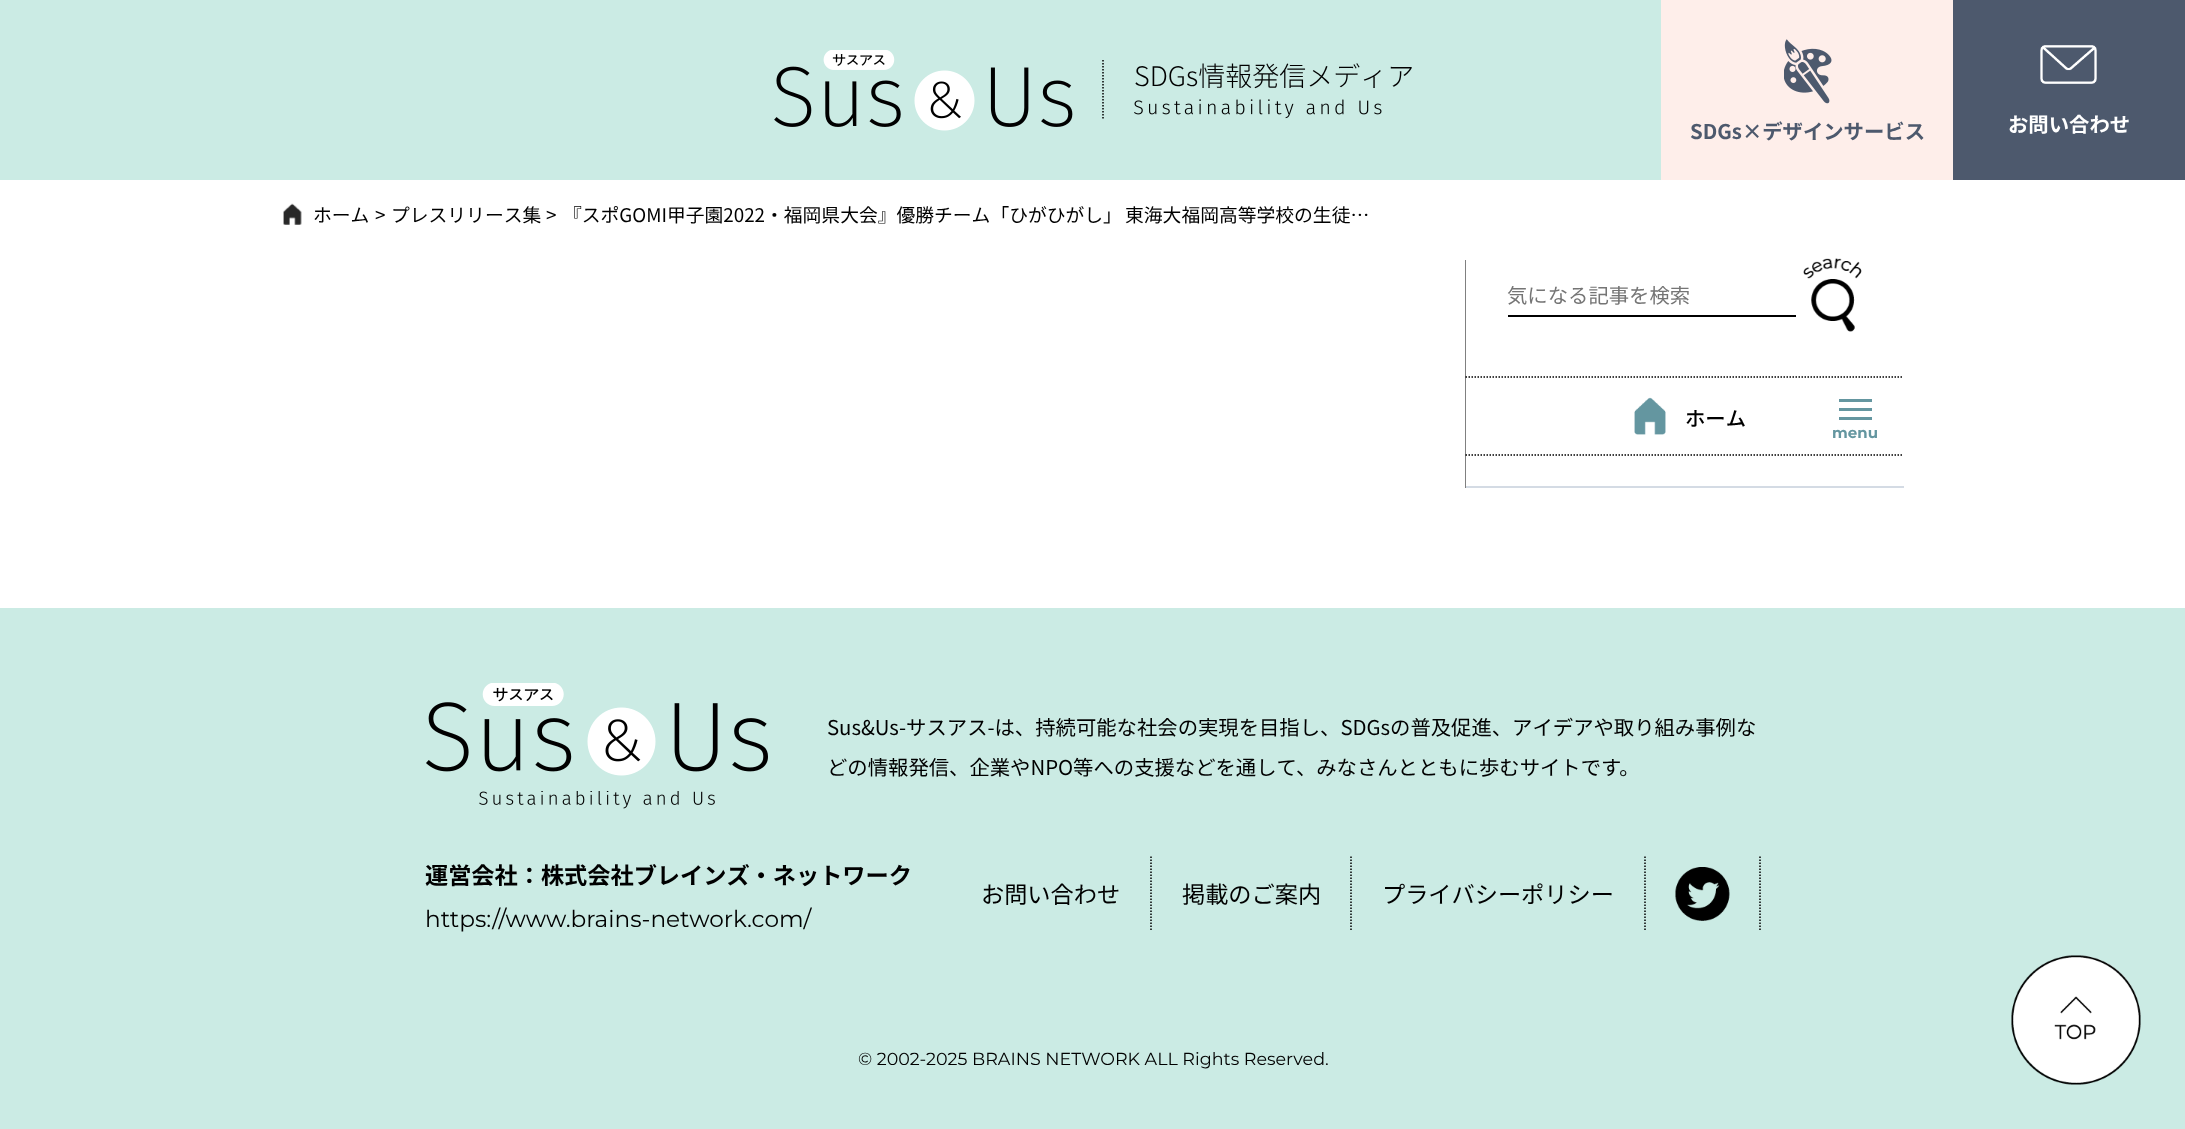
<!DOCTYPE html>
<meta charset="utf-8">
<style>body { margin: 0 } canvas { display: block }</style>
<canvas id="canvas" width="2185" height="1129"></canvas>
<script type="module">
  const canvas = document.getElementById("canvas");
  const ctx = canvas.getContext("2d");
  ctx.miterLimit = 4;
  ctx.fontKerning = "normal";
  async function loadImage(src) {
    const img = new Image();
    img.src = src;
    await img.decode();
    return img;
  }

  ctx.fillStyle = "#ffffff";
  ctx.fillRect(0, 0, 2185, 1129);
  ctx.fillStyle = "#cbebe4";
  ctx.fillRect(0, 0, 1661, 180);
  ctx.drawImage(await loadImage("img1.png"), 774, 50, 299, 81);
  ctx.beginPath();
  ctx.moveTo(1103, 60);
  ctx.lineTo(1103, 120);
  ctx.strokeStyle = "#000000";
  ctx.lineWidth = 1.5;
  ctx.setLineDash([1.5, 1.5]);
  ctx.stroke();
  ctx.font = "300 27px Noto Sans JP";
  ctx.fillStyle = "#000000";
  ctx.fillText("SDGs情報発信メディア", 1134, 86);
  ctx.drawImage(await loadImage("img2.png"), 1134, 99, 248, 20);
  ctx.fillStyle = "#feeeea";
  ctx.fillRect(1661, 0, 292, 180);
  ctx.drawImage(await loadImage("img3.png"), 1784, 39, 48, 65);
  ctx.font = "bold 20.35px Noto Sans JP";
  ctx.fillStyle = "#4d596d";
  ctx.fillText("SDGs×デザインサービス", 1690, 139);
  ctx.fillRect(1953, 0, 232, 180);
  ctx.drawImage(await loadImage("img4.png"), 2040, 45, 57, 39);
  ctx.fillStyle = "#ffffff";
  ctx.fillText("お問い合わせ", 2008, 132);
  ctx.drawImage(await loadImage("img5.png"), 283, 203, 19, 22);
  ctx.font = "18.8px Noto Sans JP";
  ctx.fillStyle = "#000000";
  ctx.fillText("ホーム", 313, 222);
  ctx.fillText(">", 375, 222);
  ctx.fillText("プレスリリース集", 391, 222);
  ctx.fillText(">", 546, 222);
  ctx.wordSpacing = "-1px";
  ctx.fillText("『スポGOMI甲子園2022・福岡県大会』優勝チーム「ひがひがし」 東海大福岡高等学校の生徒…", 563, 222);
  ctx.drawImage(await loadImage("img6.png"), 1465, 260, 1, 228);
  ctx.fillStyle = "#d4dbe4";
  ctx.fillRect(1466, 486, 438, 2);
  ctx.fillStyle = "#000000";
  ctx.fillRect(1508, 315, 288, 2);
  ctx.wordSpacing = "0px";
  ctx.font = "20.35px Noto Sans JP";
  ctx.fillStyle = "#757575";
  ctx.fillText("気になる記事を検索", 1507, 303);
  ctx.drawImage(await loadImage("img7.png"), 1803, 258, 59, 74);
  ctx.beginPath();
  ctx.moveTo(1465.5, 377);
  ctx.lineTo(1903.5, 377);
  ctx.stroke();
  ctx.beginPath();
  ctx.moveTo(1465.5, 455);
  ctx.lineTo(1903.5, 455);
  ctx.stroke();
  ctx.drawImage(await loadImage("img8.png"), 1634, 397, 32, 38);
  ctx.font = "500 20.35px Noto Sans JP";
  ctx.fillStyle = "#000000";
  ctx.fillText("ホーム", 1685, 426);
  ctx.fillStyle = "#6496a0";
  ctx.fillRect(1839, 399, 33, 3);
  ctx.fillRect(1839, 408, 33, 3);
  ctx.fillRect(1839, 417, 33, 3);
  ctx.font = "bold 15px Montserrat";
  ctx.fillText("menu", 1832, 438);
  ctx.fillStyle = "#cbebe4";
  ctx.fillRect(0, 608, 2185, 521);
  ctx.drawImage(await loadImage("img9.png"), 426, 683, 342, 93);
  ctx.drawImage(await loadImage("img10.png"), 479, 791, 236, 18);
  ctx.font = "20.35px Noto Sans JP";
  ctx.fillStyle = "#000000";
  ctx.fillText("Sus&Us-サスアス-は、持続可能な社会の実現を目指し、SDGsの普及促進、アイデアや取り組み事例な", 827, 735);
  ctx.fillText("どの情報発信、企業やNPO等への支援などを通して、みなさんとともに歩むサイトです。", 827, 775);
  ctx.font = "bold 23.2px Noto Sans JP";
  ctx.fillText("運営会社：株式会社ブレインズ・ネットワーク", 425, 884);
  ctx.font = "23.2px Montserrat";
  ctx.fillText("https://www.brains-network.com/", 425, 927);
  ctx.beginPath();
  ctx.moveTo(1151, 856.5);
  ctx.lineTo(1151, 931.5);
  ctx.stroke();
  ctx.font = "23.2px Noto Sans JP";
  ctx.fillText("お問い合わせ", 981, 903);
  ctx.beginPath();
  ctx.moveTo(1351, 856.5);
  ctx.lineTo(1351, 931.5);
  ctx.stroke();
  ctx.fillText("掲載のご案内", 1182, 903);
  ctx.beginPath();
  ctx.moveTo(1645, 856.5);
  ctx.lineTo(1645, 931.5);
  ctx.stroke();
  ctx.fillText("プライバシーポリシー", 1382, 903);
  ctx.beginPath();
  ctx.moveTo(1760, 856.5);
  ctx.lineTo(1760, 931.5);
  ctx.stroke();
  ctx.drawImage(await loadImage("img11.png"), 1675, 867, 55, 54);
  ctx.font = "17.5px Montserrat";
  ctx.fillText("© 2002-2025 BRAINS NETWORK ALL Rights Reserved.", 858, 1065);
  ctx.drawImage(await loadImage("img12.png"), 2011, 955, 130, 130);
</script>
